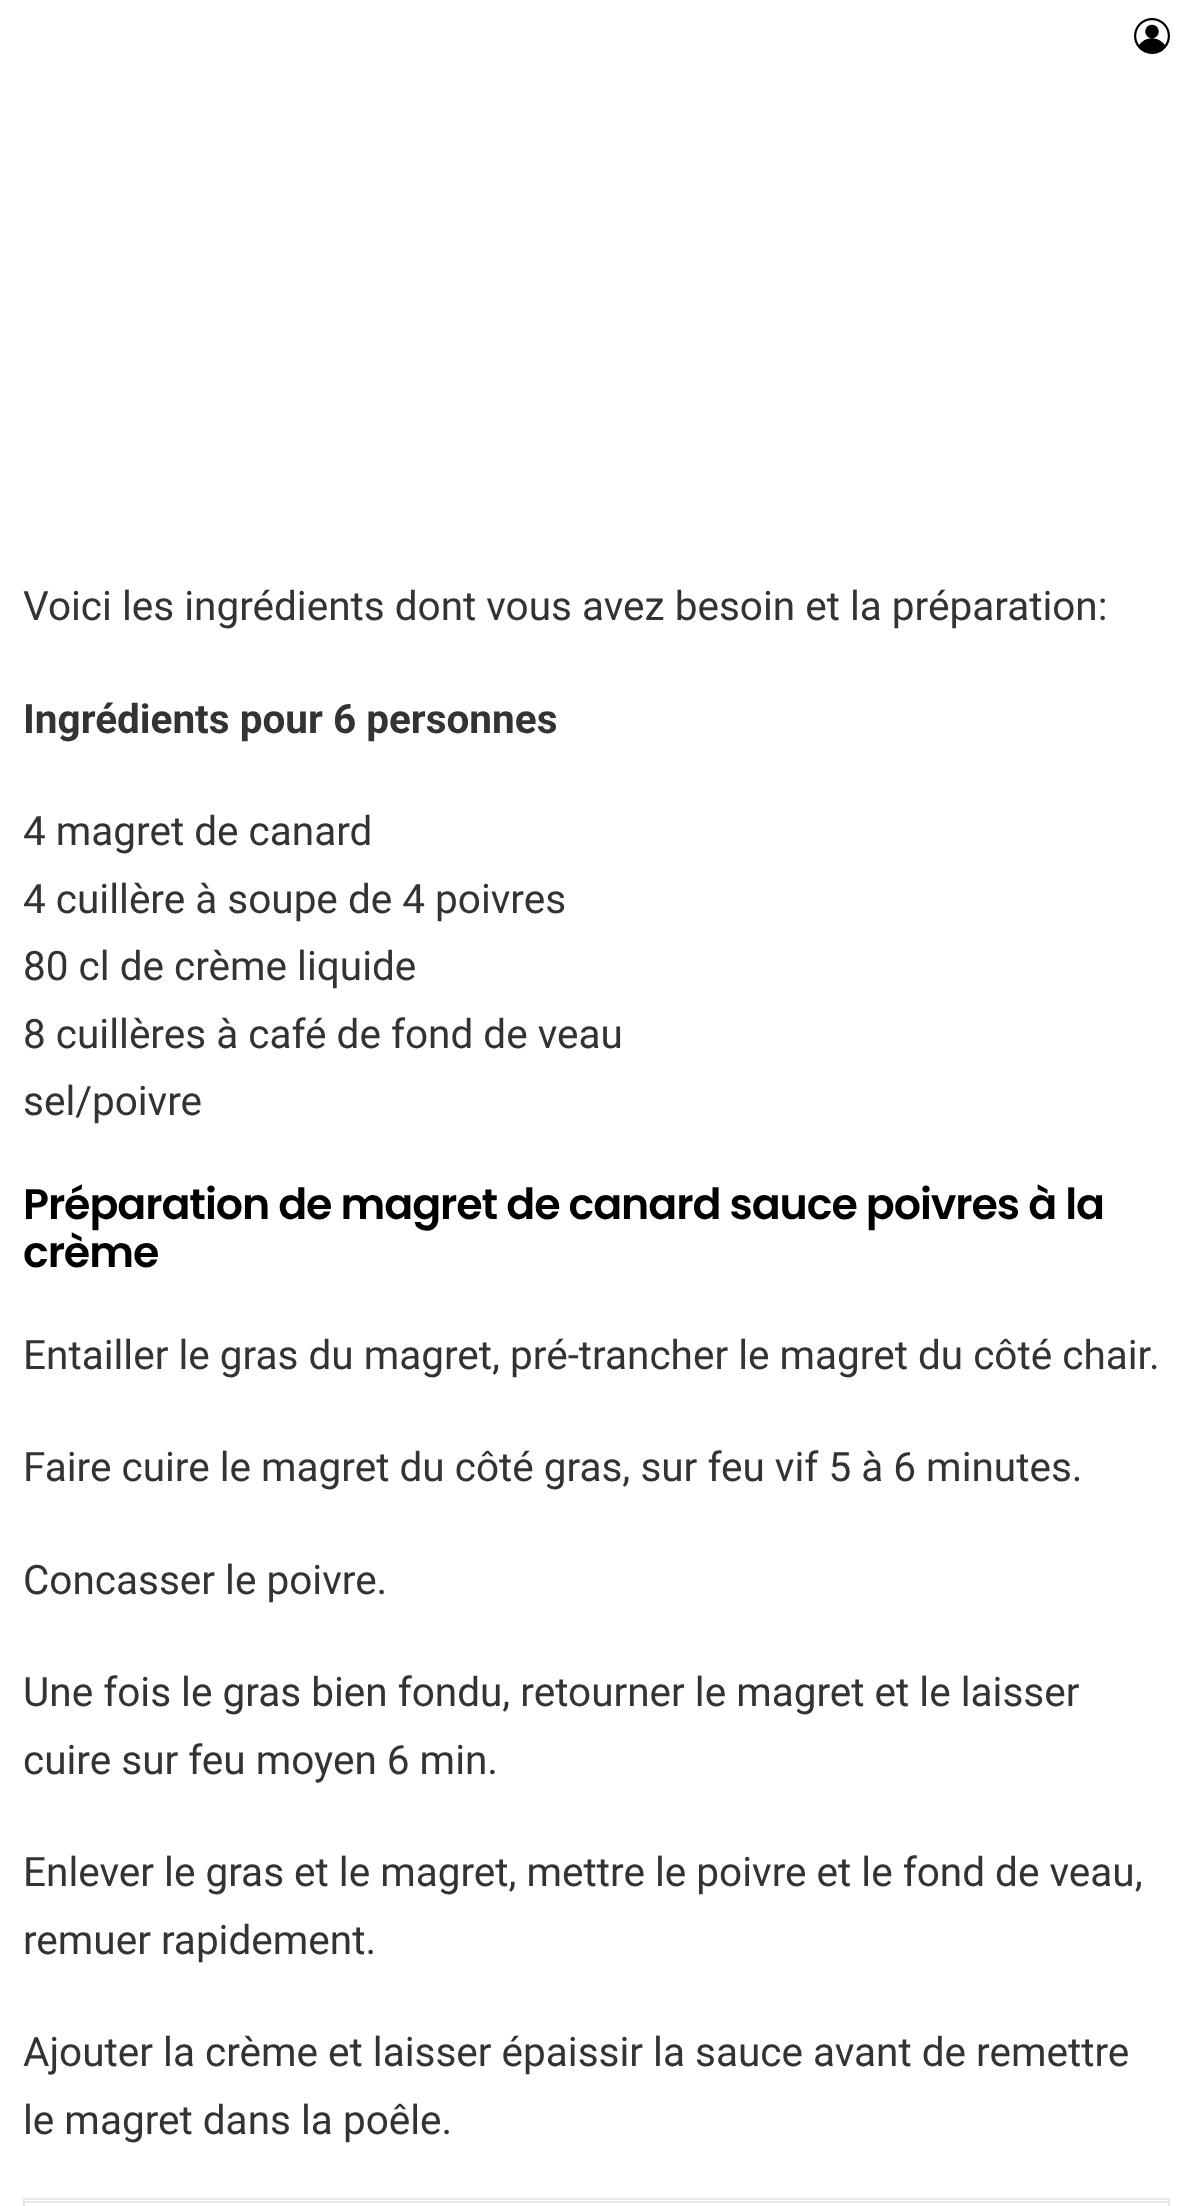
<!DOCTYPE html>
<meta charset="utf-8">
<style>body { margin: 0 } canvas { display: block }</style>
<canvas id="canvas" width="1191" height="2206"></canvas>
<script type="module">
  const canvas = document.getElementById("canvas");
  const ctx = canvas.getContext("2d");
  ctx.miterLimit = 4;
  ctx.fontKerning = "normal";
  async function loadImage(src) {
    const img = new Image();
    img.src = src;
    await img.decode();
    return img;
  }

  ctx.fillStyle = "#ffffff";
  ctx.fillRect(0, 0, 1191, 2206);
  ctx.drawImage(await loadImage("img1.png"), 1134, 18, 36, 36);
  ctx.font = "40.5px Roboto";
  ctx.fillStyle = "#333333";
  ctx.fillText("Voici les ingrédients dont vous avez besoin et la préparation:", 23, 620);
  ctx.font = "bold 40.5px Roboto";
  ctx.fillText("Ingrédients pour 6 personnes", 23, 733);
  ctx.font = "40.5px Roboto";
  ctx.fillText("4 magret de canard", 23, 845);
  ctx.fillText("4 cuillère à soupe de 4 poivres", 23, 913);
  ctx.fillText("80 cl de crème liquide", 23, 980);
  ctx.fillText("8 cuillères à café de fond de veau", 23, 1048);
  ctx.fillText("sel/poivre", 23, 1115);
  ctx.letterSpacing = "-1.07px";
  ctx.font = "600 42.75px Poppins";
  ctx.fillStyle = "#000000";
  ctx.fillText("Préparation de magret de canard sauce poivres à la", 23, 1219);
  ctx.fillText("crème", 23, 1267);
  ctx.letterSpacing = "0px";
  ctx.font = "40.5px Roboto";
  ctx.fillStyle = "#333333";
  ctx.fillText("Entailler le gras du magret, pré-trancher le magret du côté chair.", 23, 1369);
  ctx.fillText("Faire cuire le magret du côté gras, sur feu vif 5 à 6 minutes.", 23, 1481);
  ctx.fillText("Concasser le poivre.", 23, 1594);
  ctx.fillText("Une fois le gras bien fondu, retourner le magret et le laisser", 23, 1706);
  ctx.fillText("cuire sur feu moyen 6 min.", 23, 1774);
  ctx.fillText("Enlever le gras et le magret, mettre le poivre et le fond de veau,", 23, 1886);
  ctx.fillText("remuer rapidement.", 23, 1954);
  ctx.fillText("Ajouter la crème et laisser épaissir la sauce avant de remettre", 23, 2066);
  ctx.fillText("le magret dans la poêle.", 23, 2134);
  ctx.strokeStyle = "#e7e7e7";
  ctx.lineWidth = 2;
  ctx.strokeRect(24, 2199, 1145, 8);
  ctx.fillStyle = "#e7e7e7";
  ctx.fillRect(25, 2201, 1143, 2);
</script>
